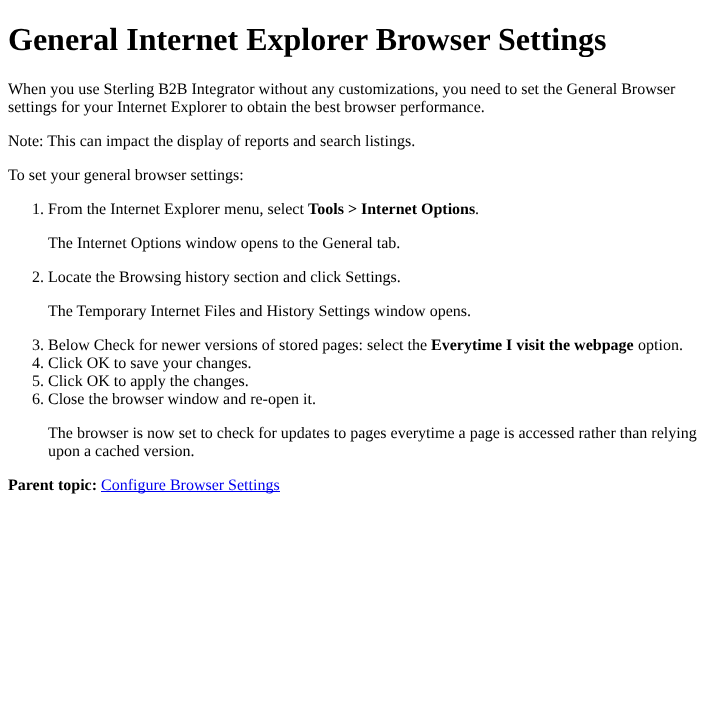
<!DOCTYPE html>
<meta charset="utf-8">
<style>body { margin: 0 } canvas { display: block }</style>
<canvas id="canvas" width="706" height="711"></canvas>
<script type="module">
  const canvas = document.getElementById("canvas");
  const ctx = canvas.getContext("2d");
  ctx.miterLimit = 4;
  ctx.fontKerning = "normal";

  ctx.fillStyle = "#ffffff";
  ctx.fillRect(0, 0, 706, 711);
  ctx.font = "bold 32px Liberation Serif";
  ctx.fillStyle = "#000000";
  ctx.fillText("General Internet Explorer Browser Settings", 8, 50);
  ctx.font = "16px Liberation Serif";
  ctx.fillText("When you use Sterling B2B Integrator without any customizations, you need to set the General Browser", 8, 94);
  ctx.fillText("settings for your Internet Explorer to obtain the best browser performance.", 8, 112);
  ctx.fillText("Note: This can impact the display of reports and search listings.", 8, 146);
  ctx.fillText("To set your general browser settings:", 8, 180);
  ctx.fillText("1. From the Internet Explorer menu, select", 32, 214);
  ctx.font = "bold 16px Liberation Serif";
  ctx.fillText("Tools > Internet Options", 308, 214);
  ctx.font = "16px Liberation Serif";
  ctx.fillText(".", 475, 214);
  ctx.fillText("The Internet Options window opens to the General tab.", 48, 248);
  ctx.fillText("2. Locate the Browsing history section and click Settings.", 32, 282);
  ctx.fillText("The Temporary Internet Files and History Settings window opens.", 48, 316);
  ctx.fillText("3. Below Check for newer versions of stored pages: select the", 32, 350);
  ctx.font = "bold 16px Liberation Serif";
  ctx.fillText("Everytime I visit the webpage", 431, 350);
  ctx.font = "16px Liberation Serif";
  ctx.fillText("option.", 638, 350);
  ctx.fillText("4. Click OK to save your changes.", 32, 368);
  ctx.fillText("5. Click OK to apply the changes.", 32, 386);
  ctx.fillText("6. Close the browser window and re-open it.", 32, 404);
  ctx.fillText("The browser is now set to check for updates to pages everytime a page is accessed rather than relying", 48, 438);
  ctx.fillText("upon a cached version.", 48, 456);
  ctx.font = "bold 16px Liberation Serif";
  ctx.fillText("Parent topic:", 8, 490);
  ctx.fillStyle = "#0000ee";
  ctx.fillRect(101, 491, 179, 1);
  ctx.font = "16px Liberation Serif";
  ctx.fillText("Configure Browser Settings", 101, 490);
</script>
